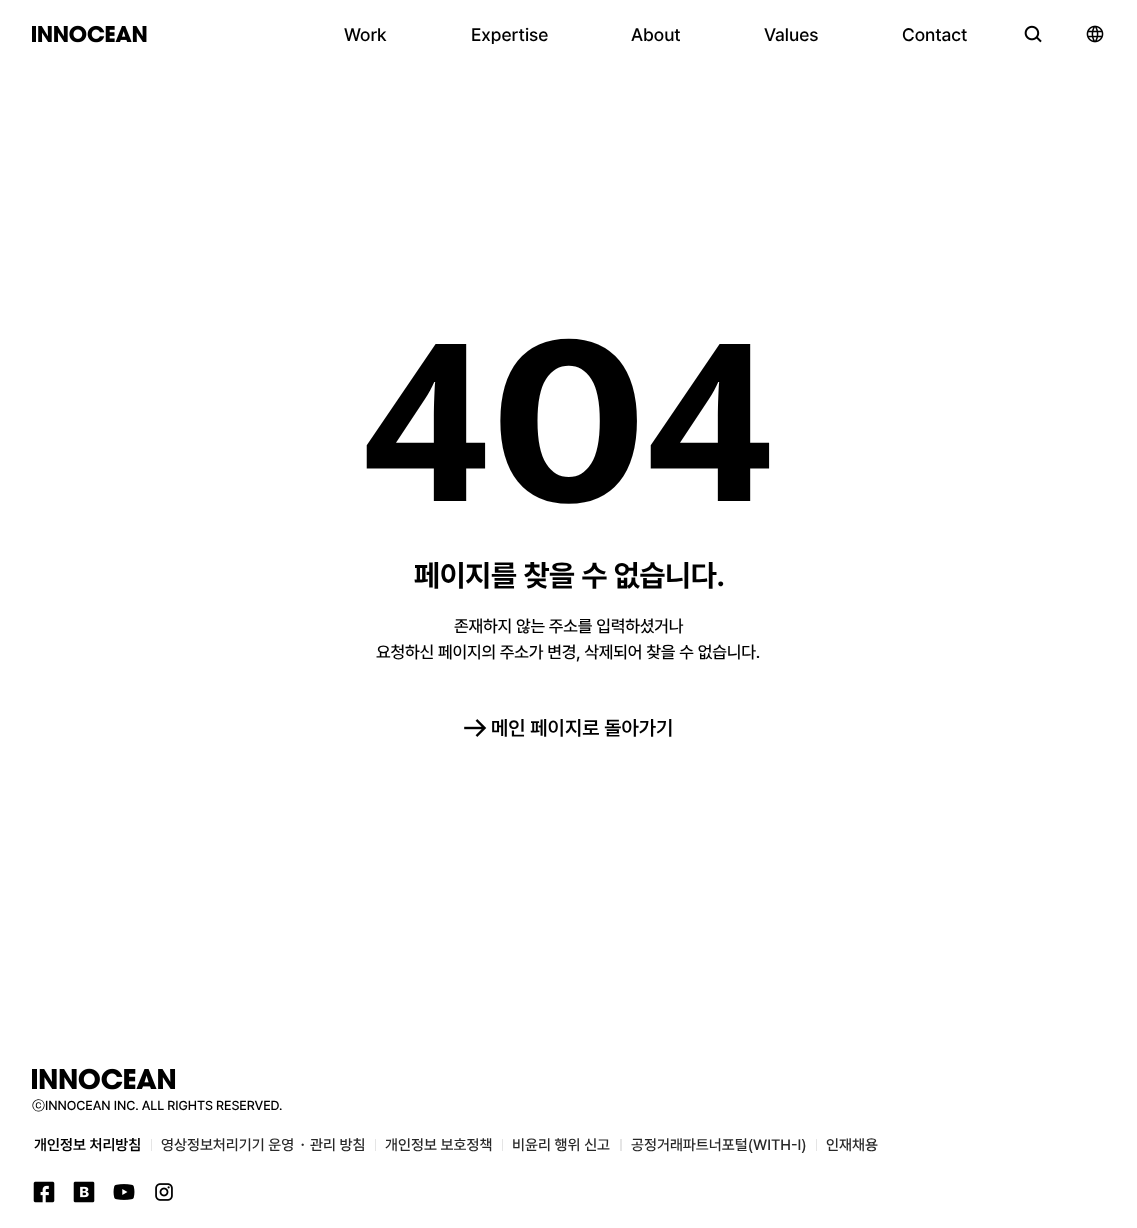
<!DOCTYPE html>
<meta charset="utf-8">
<style>body { margin: 0 } canvas { display: block }</style>
<canvas id="canvas" width="1137" height="1228"></canvas>
<script type="module">
  const canvas = document.getElementById("canvas");
  const ctx = canvas.getContext("2d");
  ctx.miterLimit = 4;
  ctx.fontKerning = "normal";
  async function loadImage(src) {
    const img = new Image();
    img.src = src;
    await img.decode();
    return img;
  }

  ctx.fillStyle = "#ffffff";
  ctx.fillRect(0, 0, 1137, 1228);
  ctx.drawImage(await loadImage("img1.png"), 32, 25, 115, 18);
  ctx.font = "500 18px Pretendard";
  ctx.fillStyle = "#000000";
  ctx.fillText("Work", 344, 41);
  ctx.save();
  ctx.beginPath();
  ctx.rect(0, 24, 1137, 20);
  ctx.clip();
  ctx.fillText("Expertise", 471, 41);
  ctx.restore();
  ctx.fillText("About", 631, 41);
  ctx.fillText("Values", 764, 41);
  ctx.fillText("Contact", 902, 41);
  ctx.drawImage(await loadImage("img2.png"), 1024, 25, 18, 18);
  ctx.drawImage(await loadImage("img3.png"), 1086, 25, 18, 18);
  ctx.letterSpacing = "-1px";
  ctx.font = "bold 220px Noto Sans";
  ctx.fillText("4", 363, 501);
  ctx.font = "bold 220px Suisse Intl";
  ctx.fillText("0", 490, 501);
  ctx.font = "bold 220px Noto Sans";
  ctx.fillText("4", 647, 501);
  ctx.letterSpacing = "-0.25px";
  ctx.font = "bold 30px Pretendard";
  ctx.fillText("페이지를 찾을 수 없습니다.", 414, 586);
  ctx.letterSpacing = "-0.2px";
  ctx.font = "500 17px Pretendard";
  ctx.fillText("존재하지 않는 주소를 입력하셨거나", 454, 632);
  ctx.fillText("요청하신 페이지의 주소가 변경, 삭제되어 찾을 수 없습니다.", 376, 658);
  ctx.drawImage(await loadImage("img4.png"), 464, 719, 23, 18);
  ctx.letterSpacing = "0px";
  ctx.font = "600 20px Pretendard";
  ctx.fillText("메인 페이지로 돌아가기", 491, 735);
  ctx.drawImage(await loadImage("img5.png"), 32, 1068, 144, 22);
  ctx.letterSpacing = "-0.05px";
  ctx.font = "500 13px WenQuanYi Zen Hei";
  ctx.fillText("ⓒ", 32, 1110);
  ctx.font = "500 13px Pretendard";
  ctx.fillText("INNOCEAN INC. ALL RIGHTS RESERVED.", 45, 1110);
  ctx.letterSpacing = "0px";
  ctx.font = "600 15px Pretendard";
  ctx.fillText("개인정보 처리방침", 34, 1150);
  ctx.fillStyle = "#e5e5e5";
  ctx.fillRect(151, 1139, 1, 12);
  ctx.font = "500 15px Pretendard";
  ctx.fillStyle = "#282828";
  ctx.fillText("영상정보처리기기 운영", 161, 1150);
  ctx.font = "500 15px WenQuanYi Zen Hei";
  ctx.fillText("・", 295, 1150);
  ctx.font = "500 15px Pretendard";
  ctx.fillText("관리 방침", 310, 1150);
  ctx.fillStyle = "#e5e5e5";
  ctx.fillRect(375, 1139, 1, 12);
  ctx.fillStyle = "#282828";
  ctx.fillText("개인정보 보호정책", 385, 1150);
  ctx.fillStyle = "#e5e5e5";
  ctx.fillRect(502, 1139, 1, 12);
  ctx.fillStyle = "#282828";
  ctx.fillText("비윤리 행위 신고", 512, 1150);
  ctx.fillStyle = "#e5e5e5";
  ctx.fillRect(620, 1139, 2, 12);
  ctx.fillStyle = "#282828";
  ctx.fillText("공정거래파트너포털(WITH-I)", 631, 1150);
  ctx.fillStyle = "#e5e5e5";
  ctx.fillRect(816, 1139, 1, 12);
  ctx.fillStyle = "#282828";
  ctx.fillText("인재채용", 826, 1150);
  ctx.drawImage(await loadImage("img6.png"), 33, 1181, 22, 22);
  ctx.drawImage(await loadImage("img7.png"), 73, 1181, 22, 22);
  ctx.drawImage(await loadImage("img8.png"), 113, 1184, 22, 16);
  ctx.drawImage(await loadImage("img9.png"), 155, 1183, 18, 18);
</script>
